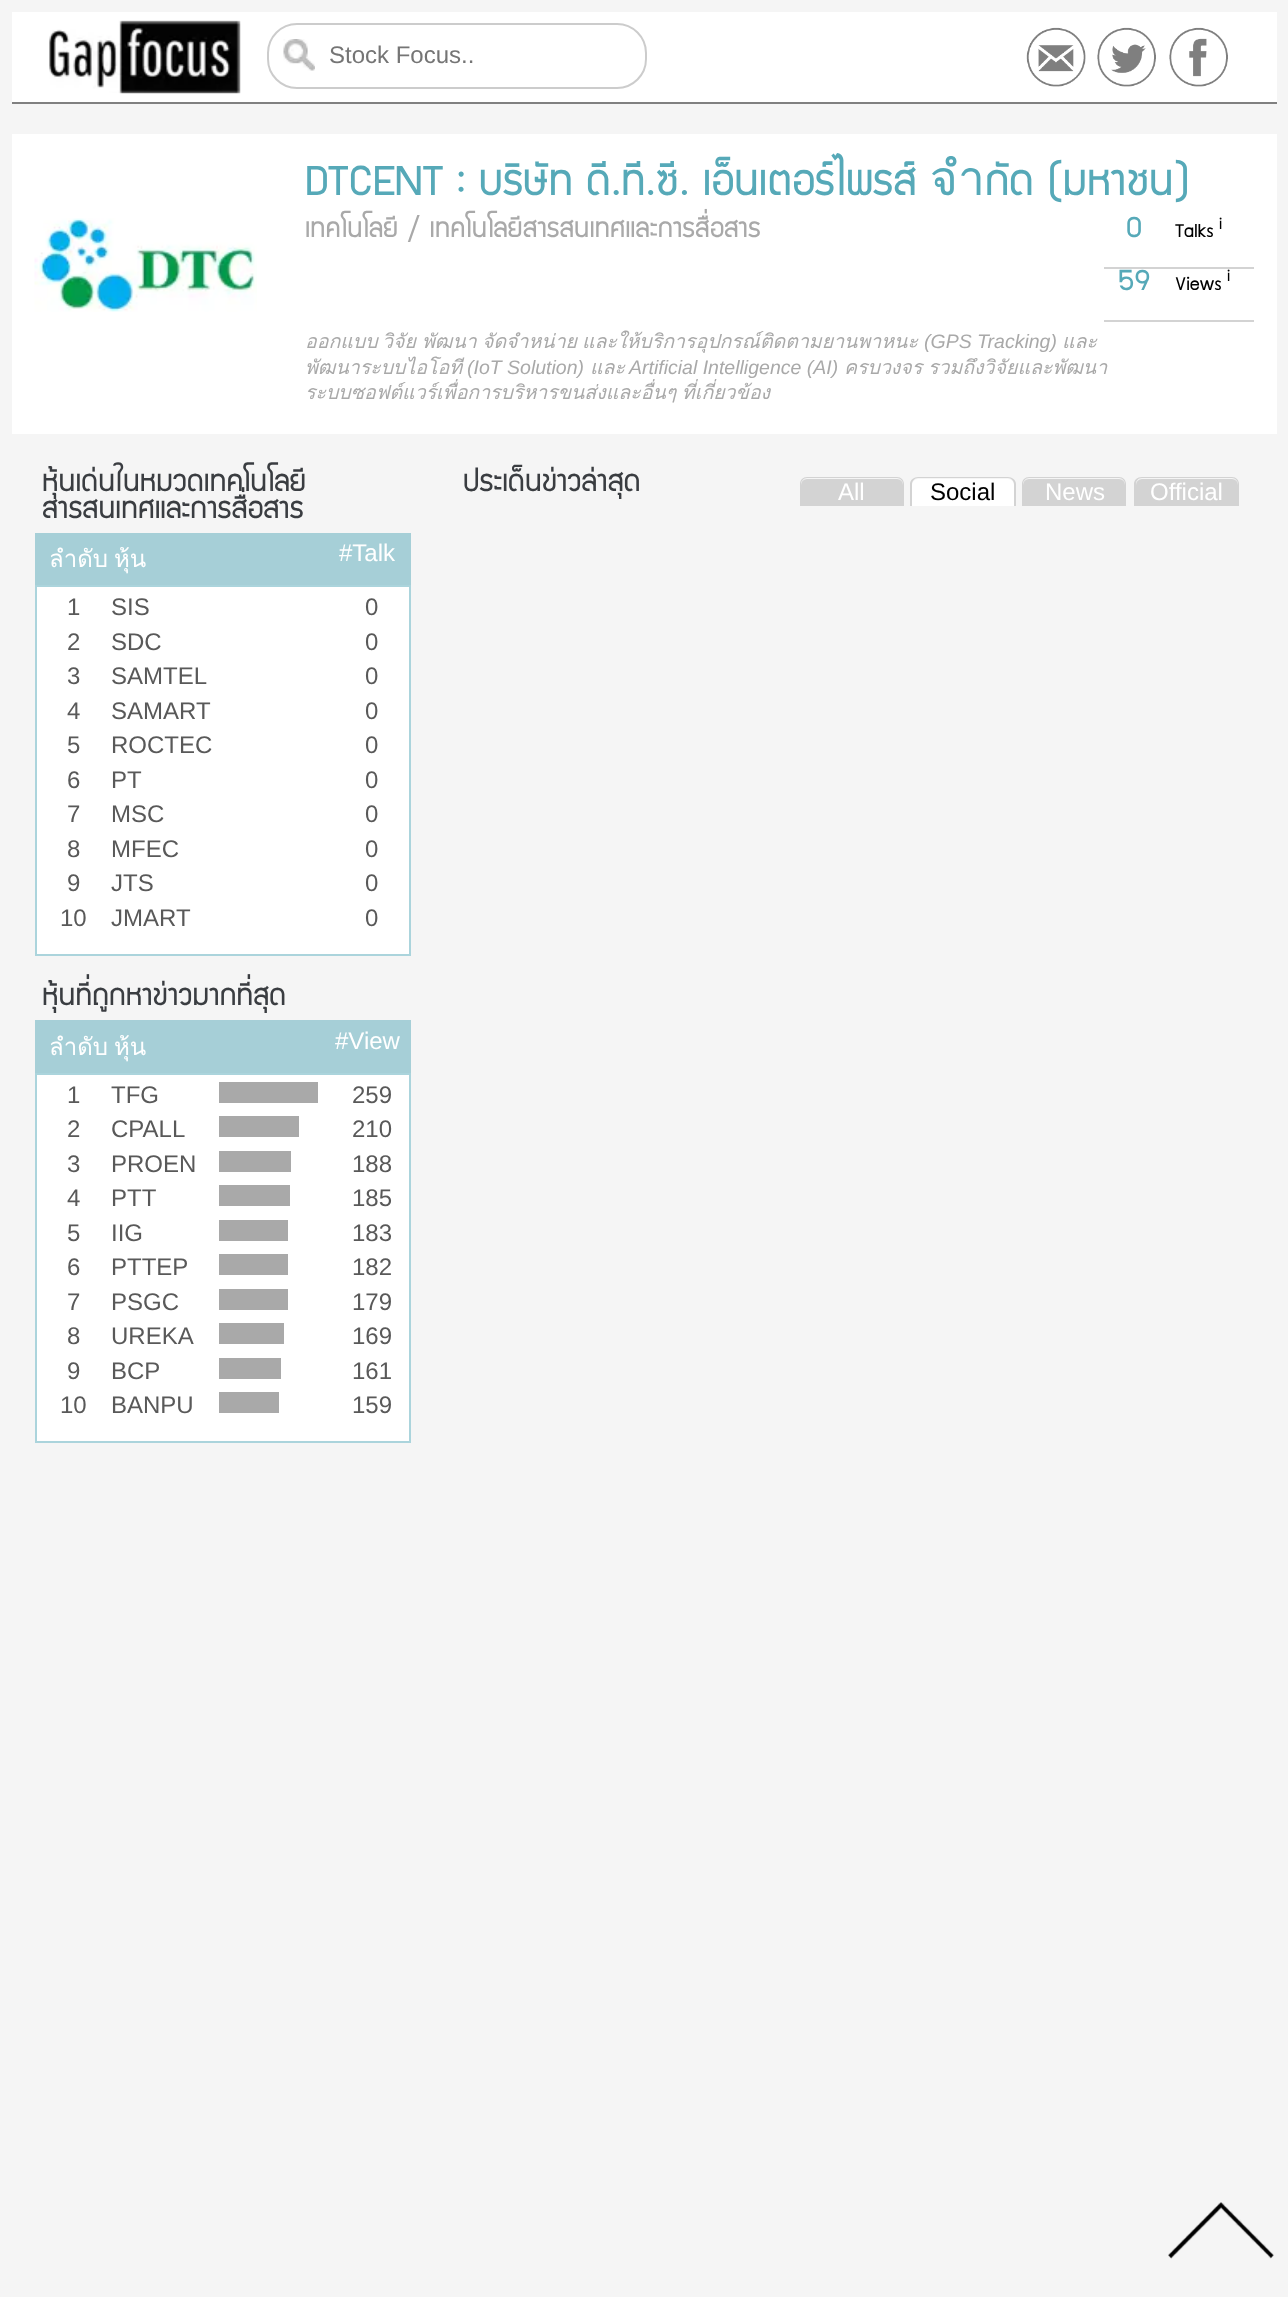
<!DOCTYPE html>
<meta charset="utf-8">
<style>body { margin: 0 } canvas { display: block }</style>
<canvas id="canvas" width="1288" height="2297"></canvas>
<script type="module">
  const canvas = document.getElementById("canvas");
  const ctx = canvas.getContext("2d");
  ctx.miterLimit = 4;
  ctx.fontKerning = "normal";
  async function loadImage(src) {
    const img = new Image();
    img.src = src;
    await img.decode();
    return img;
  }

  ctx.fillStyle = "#f5f5f5";
  ctx.fillRect(0, 0, 1288, 2297);
  ctx.fillStyle = "#ffffff";
  ctx.fillRect(12, 12, 1265, 90);
  ctx.fillStyle = "#808080";
  ctx.fillRect(12, 102, 1265, 2);
  ctx.drawImage(await loadImage("img1.png"), 49, 20, 192, 74);
  ctx.drawImage(await loadImage("img2.png"), 283, 39, 32, 32);
  ctx.beginPath();
  ctx.roundRect(268, 24, 378, 64, 29);
  ctx.strokeStyle = "#cccccc";
  ctx.lineWidth = 2;
  ctx.stroke();
  ctx.font = "24px Liberation Sans";
  ctx.fillStyle = "#757575";
  ctx.fillText("Stock Focus..", 329, 63);
  ctx.drawImage(await loadImage("img3.png"), 1026, 27, 60, 60);
  ctx.drawImage(await loadImage("img4.png"), 1097, 27, 59, 60);
  ctx.drawImage(await loadImage("img5.png"), 1169, 27, 59, 60);
  ctx.fillStyle = "#ffffff";
  ctx.fillRect(12, 134, 1265, 300);
  ctx.font = "48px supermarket";
  ctx.fillStyle = "#56a9b8";
  ctx.fillText("DTCENT : บริษัท ดี.ที.ซี. เอ็นเตอร์ไพรส์ จำกัด (มหาชน)", 305, 195);
  ctx.drawImage(await loadImage("img6.png"), 34, 218, 223, 94);
  ctx.font = "30px supermarket";
  ctx.fillStyle = "#a9a9a9";
  ctx.fillText("เทคโนโลยี / เทคโนโลยีสารสนเทศและการสื่อสาร", 305, 237);
  ctx.fillStyle = "#d3d3d3";
  ctx.fillRect(1104, 267, 150, 2);
  ctx.font = "33px supermarket";
  ctx.fillStyle = "#56a9b8";
  ctx.fillText("0", 1126, 237);
  ctx.font = "21px supermarket";
  ctx.fillStyle = "#000000";
  ctx.fillText("Talks", 1175, 237);
  ctx.font = "18px supermarket";
  ctx.fillText("i", 1219, 229);
  ctx.fillStyle = "#d3d3d3";
  ctx.fillRect(1104, 320, 150, 2);
  ctx.font = "33px supermarket";
  ctx.fillStyle = "#56a9b8";
  ctx.fillText("59", 1118, 290);
  ctx.font = "21px supermarket";
  ctx.fillStyle = "#000000";
  ctx.fillText("Views", 1175, 290);
  ctx.font = "18px supermarket";
  ctx.fillText("i", 1227, 281);
  ctx.font = "italic 19.5px Loma";
  ctx.fillStyle = "#a9a9a9";
  ctx.fillText("ออกแบบ", 305, 348);
  ctx.fillText("วิจัย", 382, 348);
  ctx.fillText("พัฒนา", 422, 348);
  ctx.fillText("จัดจำหน่าย", 482, 348);
  ctx.fillText("และให้บริการอุปกรณ์ติดตามยานพาหนะ", 582, 348);
  ctx.font = "italic 19.5px Liberation Sans";
  ctx.fillText("(GPS Tracking)", 924, 348);
  ctx.font = "italic 19.5px Loma";
  ctx.fillText("และ", 1062, 348);
  ctx.save();
  ctx.beginPath();
  ctx.rect(305, 329, 829, 76);
  ctx.clip();
  ctx.fillText("พัฒนาระบบไอโอที", 305, 374);
  ctx.restore();
  ctx.font = "italic 19.5px Liberation Sans";
  ctx.fillText("(IoT Solution)", 467, 374);
  ctx.font = "italic 19.5px Loma";
  ctx.fillText("และ", 590, 374);
  ctx.font = "italic 19.5px Liberation Sans";
  ctx.fillText("Artificial Intelligence (AI)", 629, 374);
  ctx.font = "italic 19.5px Loma";
  ctx.fillText("ครบวงจร", 844, 374);
  ctx.fillText("รวมถึงวิจัยและพัฒนา", 928, 374);
  ctx.wordSpacing = "-1px";
  ctx.fillText("ระบบซอฟต์แวร์เพื่อการบริหารขนส่งและอื่นๆ ที่เกี่ยวข้อง", 305, 399);
  ctx.wordSpacing = "0px";
  ctx.font = "33px supermarket";
  ctx.fillStyle = "#3a3d41";
  ctx.fillText("หุ้นเด่นในหมวดเทคโนโลยี", 42, 491);
  ctx.fillText("สารสนเทศและการสื่อสาร", 42, 518);
  ctx.fillStyle = "#a6cfd7";
  ctx.fillRect(35, 533, 376, 52);
  ctx.font = "24px Loma";
  ctx.fillStyle = "#ffffff";
  ctx.fillText("ลำดับ", 49, 567);
  ctx.fillText("หุ้น", 114, 567);
  ctx.font = "24px Liberation Sans";
  ctx.fillText("#Talk", 339, 561);
  ctx.beginPath();
  ctx.rect(36, 586, 374, 369);
  ctx.fill();
  ctx.strokeStyle = "#abd4dc";
  ctx.stroke();
  ctx.fillStyle = "#595959";
  ctx.fillText("1", 67, 615);
  ctx.fillText("SIS", 111, 615);
  ctx.fillText("0", 365, 615);
  ctx.fillText("2", 67, 650);
  ctx.fillText("SDC", 111, 650);
  ctx.fillText("0", 365, 650);
  ctx.fillText("3", 67, 684);
  ctx.fillText("SAMTEL", 111, 684);
  ctx.fillText("0", 365, 684);
  ctx.fillText("4", 67, 719);
  ctx.fillText("SAMART", 111, 719);
  ctx.fillText("0", 365, 719);
  ctx.fillText("5", 67, 753);
  ctx.fillText("ROCTEC", 111, 753);
  ctx.fillText("0", 365, 753);
  ctx.fillText("6", 67, 788);
  ctx.fillText("PT", 111, 788);
  ctx.fillText("0", 365, 788);
  ctx.fillText("7", 67, 822);
  ctx.fillText("MSC", 111, 822);
  ctx.fillText("0", 365, 822);
  ctx.fillText("8", 67, 857);
  ctx.fillText("MFEC", 111, 857);
  ctx.fillText("0", 365, 857);
  ctx.fillText("9", 67, 891);
  ctx.fillText("JTS", 111, 891);
  ctx.fillText("0", 365, 891);
  ctx.fillText("10", 60, 926);
  ctx.fillText("JMART", 111, 926);
  ctx.fillText("0", 365, 926);
  ctx.font = "33px supermarket";
  ctx.fillStyle = "#3a3d41";
  ctx.fillText("หุ้นที่ถูกหาข่าวมากที่สุด", 42, 1005);
  ctx.fillStyle = "#a6cfd7";
  ctx.fillRect(35, 1020, 376, 53);
  ctx.font = "24px Loma";
  ctx.fillStyle = "#ffffff";
  ctx.fillText("ลำดับ", 49, 1055);
  ctx.fillText("หุ้น", 114, 1055);
  ctx.font = "24px Liberation Sans";
  ctx.fillText("#View", 335, 1049);
  ctx.beginPath();
  ctx.rect(36, 1074, 374, 368);
  ctx.fill();
  ctx.stroke();
  ctx.fillStyle = "#595959";
  ctx.fillText("1", 67, 1103);
  ctx.fillText("TFG", 111, 1103);
  ctx.fillStyle = "#a9a9a9";
  ctx.fillRect(219, 1082, 99, 21);
  ctx.fillStyle = "#595959";
  ctx.fillText("259", 352, 1103);
  ctx.fillText("2", 67, 1137);
  ctx.fillText("CPALL", 111, 1137);
  ctx.fillStyle = "#a9a9a9";
  ctx.fillRect(219, 1116, 80, 21);
  ctx.fillStyle = "#595959";
  ctx.fillText("210", 352, 1137);
  ctx.fillText("3", 67, 1172);
  ctx.fillText("PROEN", 111, 1172);
  ctx.fillStyle = "#a9a9a9";
  ctx.fillRect(219, 1151, 72, 21);
  ctx.fillStyle = "#595959";
  ctx.fillText("188", 352, 1172);
  ctx.fillText("4", 67, 1206);
  ctx.fillText("PTT", 111, 1206);
  ctx.fillStyle = "#a9a9a9";
  ctx.fillRect(219, 1185, 71, 21);
  ctx.fillStyle = "#595959";
  ctx.fillText("185", 352, 1206);
  ctx.fillText("5", 67, 1241);
  ctx.fillText("IIG", 111, 1241);
  ctx.fillStyle = "#a9a9a9";
  ctx.fillRect(219, 1220, 69, 21);
  ctx.fillStyle = "#595959";
  ctx.fillText("183", 352, 1241);
  ctx.fillText("6", 67, 1275);
  ctx.fillText("PTTEP", 111, 1275);
  ctx.fillStyle = "#a9a9a9";
  ctx.fillRect(219, 1254, 69, 21);
  ctx.fillStyle = "#595959";
  ctx.fillText("182", 352, 1275);
  ctx.fillText("7", 67, 1310);
  ctx.fillText("PSGC", 111, 1310);
  ctx.fillStyle = "#a9a9a9";
  ctx.fillRect(219, 1289, 69, 21);
  ctx.fillStyle = "#595959";
  ctx.fillText("179", 352, 1310);
  ctx.fillText("8", 67, 1344);
  ctx.fillText("UREKA", 111, 1344);
  ctx.fillStyle = "#a9a9a9";
  ctx.fillRect(219, 1323, 65, 21);
  ctx.fillStyle = "#595959";
  ctx.fillText("169", 352, 1344);
  ctx.fillText("9", 67, 1379);
  ctx.fillText("BCP", 111, 1379);
  ctx.fillStyle = "#a9a9a9";
  ctx.fillRect(219, 1358, 62, 21);
  ctx.fillStyle = "#595959";
  ctx.fillText("161", 352, 1379);
  ctx.fillText("10", 60, 1413);
  ctx.fillText("BANPU", 111, 1413);
  ctx.fillStyle = "#a9a9a9";
  ctx.fillRect(219, 1392, 60, 21);
  ctx.fillStyle = "#595959";
  ctx.fillText("159", 352, 1413);
  ctx.font = "33px supermarket";
  ctx.fillStyle = "#3a3d41";
  ctx.fillText("ประเด็นข่าวล่าสุด", 463, 491);
  ctx.fillStyle = "#d3d3d3";
  ctx.beginPath();
  ctx.roundRect(801, 479, 102, 27, [6, 6, 0, 0]);
  ctx.fill();
  ctx.beginPath();
  ctx.moveTo(807, 477);
  ctx.lineTo(897, 477);
  ctx.bezierCurveTo(901, 477, 904, 480, 904, 484);
  ctx.lineTo(904, 506);
  ctx.lineTo(800, 506);
  ctx.lineTo(800, 484);
  ctx.bezierCurveTo(800, 480, 803, 477, 807, 477);
  ctx.closePath();
  ctx.moveTo(807, 478);
  ctx.lineTo(897, 478);
  ctx.bezierCurveTo(900, 478, 903, 481, 903, 484);
  ctx.lineTo(903, 506);
  ctx.lineTo(801, 506);
  ctx.lineTo(801, 484);
  ctx.bezierCurveTo(801, 481, 804, 478, 807, 478);
  ctx.closePath();
  ctx.fill("evenodd");
  ctx.font = "24px Liberation Sans";
  ctx.fillStyle = "#ffffff";
  ctx.fillText("All", 838, 500);
  ctx.beginPath();
  ctx.roundRect(912, 479, 102, 27, [6, 6, 0, 0]);
  ctx.fill();
  ctx.fillStyle = "#d3d3d3";
  ctx.beginPath();
  ctx.moveTo(918, 477);
  ctx.lineTo(1008, 477);
  ctx.bezierCurveTo(1012, 477, 1016, 480, 1016, 484);
  ctx.lineTo(1016, 506);
  ctx.lineTo(910, 506);
  ctx.lineTo(910, 484);
  ctx.bezierCurveTo(910, 480, 914, 477, 918, 477);
  ctx.closePath();
  ctx.moveTo(918, 478);
  ctx.lineTo(1008, 478);
  ctx.bezierCurveTo(1011, 478, 1014, 481, 1014, 484);
  ctx.lineTo(1014, 506);
  ctx.lineTo(912, 506);
  ctx.lineTo(912, 484);
  ctx.bezierCurveTo(912, 481, 915, 478, 918, 478);
  ctx.closePath();
  ctx.fill("evenodd");
  ctx.fillStyle = "#000000";
  ctx.fillText("Social", 930, 500);
  ctx.fillStyle = "#d3d3d3";
  ctx.beginPath();
  ctx.roundRect(1023, 479, 102, 27, [6, 6, 0, 0]);
  ctx.fill();
  ctx.beginPath();
  ctx.moveTo(1029, 477);
  ctx.lineTo(1119, 477);
  ctx.bezierCurveTo(1123, 477, 1126, 480, 1126, 484);
  ctx.lineTo(1126, 506);
  ctx.lineTo(1022, 506);
  ctx.lineTo(1022, 484);
  ctx.bezierCurveTo(1022, 480, 1025, 477, 1029, 477);
  ctx.closePath();
  ctx.moveTo(1029, 478);
  ctx.lineTo(1119, 478);
  ctx.bezierCurveTo(1122, 478, 1125, 481, 1125, 484);
  ctx.lineTo(1125, 506);
  ctx.lineTo(1023, 506);
  ctx.lineTo(1023, 484);
  ctx.bezierCurveTo(1023, 481, 1026, 478, 1029, 478);
  ctx.closePath();
  ctx.fill("evenodd");
  ctx.fillStyle = "#ffffff";
  ctx.fillText("News", 1045, 500);
  ctx.fillStyle = "#d3d3d3";
  ctx.beginPath();
  ctx.roundRect(1136, 479, 102, 27, [6, 6, 0, 0]);
  ctx.fill();
  ctx.beginPath();
  ctx.moveTo(1142, 477);
  ctx.lineTo(1232, 477);
  ctx.bezierCurveTo(1236, 477, 1239, 480, 1239, 484);
  ctx.lineTo(1239, 506);
  ctx.lineTo(1134, 506);
  ctx.lineTo(1134, 484);
  ctx.bezierCurveTo(1134, 480, 1137, 477, 1142, 477);
  ctx.closePath();
  ctx.moveTo(1142, 478);
  ctx.lineTo(1232, 478);
  ctx.bezierCurveTo(1235, 478, 1238, 481, 1238, 484);
  ctx.lineTo(1238, 506);
  ctx.lineTo(1136, 506);
  ctx.lineTo(1136, 484);
  ctx.bezierCurveTo(1136, 481, 1138, 478, 1142, 478);
  ctx.closePath();
  ctx.fill("evenodd");
  ctx.fillStyle = "#ffffff";
  ctx.fillText("Official", 1150, 500);
  ctx.drawImage(await loadImage("img7.png"), 1168, 2202, 106, 57);
</script>
